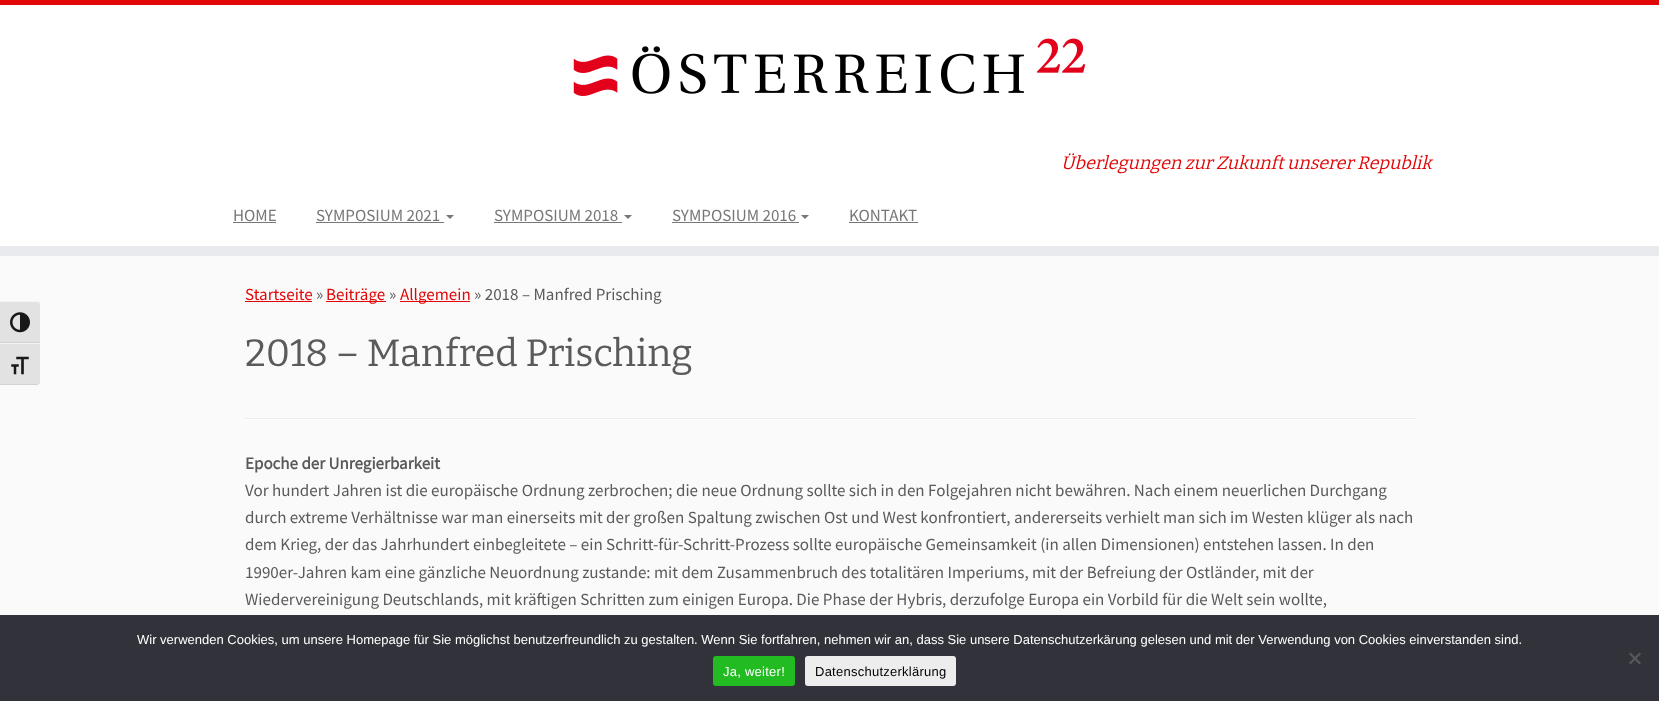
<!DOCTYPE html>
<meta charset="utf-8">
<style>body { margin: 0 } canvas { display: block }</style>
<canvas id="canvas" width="1659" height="701"></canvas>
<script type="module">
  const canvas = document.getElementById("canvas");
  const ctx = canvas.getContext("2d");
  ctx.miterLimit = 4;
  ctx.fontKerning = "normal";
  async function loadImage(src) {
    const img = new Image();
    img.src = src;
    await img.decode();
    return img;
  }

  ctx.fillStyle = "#fafafa";
  ctx.fillRect(0, 0, 1659, 701);
  ctx.fillStyle = "#e2e2e2";
  ctx.beginPath();
  ctx.roundRect(0, 301, 40, 42, [0, 4, 0, 0]);
  ctx.fill();
  ctx.fillStyle = "#f5f5f5";
  ctx.beginPath();
  ctx.moveTo(0, 301);
  ctx.lineTo(0, 302);
  ctx.lineTo(36, 302);
  ctx.bezierCurveTo(38, 302, 40, 303, 40, 305);
  ctx.bezierCurveTo(40, 303, 38, 301, 36, 301);
  ctx.closePath();
  ctx.fill();
  ctx.fillStyle = "#d2d2d2";
  ctx.fillRect(0, 342, 40, 1);
  ctx.drawImage(await loadImage("img1.png"), 10, 312, 20, 21);
  ctx.fillStyle = "#e2e2e2";
  ctx.beginPath();
  ctx.roundRect(0, 343, 40, 42, [0, 0, 4, 0]);
  ctx.fill();
  ctx.fillStyle = "#f5f5f5";
  ctx.fillRect(0, 343, 40, 1);
  ctx.fillStyle = "#d2d2d2";
  ctx.beginPath();
  ctx.moveTo(0, 384);
  ctx.lineTo(0, 385);
  ctx.lineTo(36, 385);
  ctx.bezierCurveTo(38, 385, 40, 383, 40, 381);
  ctx.bezierCurveTo(40, 383, 38, 384, 36, 384);
  ctx.closePath();
  ctx.fill();
  ctx.drawImage(await loadImage("img2.png"), 11, 356, 18, 19);
  ctx.fillStyle = "#ffffff";
  ctx.fillRect(0, 5, 1659, 241);
  ctx.fillStyle = "#e10707";
  ctx.fillRect(0, 0, 1659, 5);
  ctx.fillStyle = "#e9eaee";
  ctx.fillRect(0, 246, 1659, 10);
  ctx.drawImage(await loadImage("img3.png"), 573, 38, 513, 58);
  ctx.font = "italic 100 18px Bitter";
  ctx.fillStyle = "#e10707";
  ctx.fillText("Überlegungen zur Zukunft unserer Republik", 1061, 169);
  ctx.font = "17px Source Sans Pro";
  ctx.fillStyle = "#777777";
  ctx.fillText("HOME", 233, 221);
  ctx.fillRect(233, 222, 43, 1);
  ctx.fillText("SYMPOSIUM 2021", 316, 221);
  ctx.fillRect(316, 222, 128, 1);
  ctx.beginPath();
  ctx.moveTo(446, 215);
  ctx.lineTo(454, 215);
  ctx.lineTo(450, 219);
  ctx.closePath();
  ctx.fill();
  ctx.fillText("SYMPOSIUM 2018", 494, 221);
  ctx.fillRect(494, 222, 128, 1);
  ctx.beginPath();
  ctx.moveTo(624, 215);
  ctx.lineTo(632, 215);
  ctx.lineTo(628, 219);
  ctx.closePath();
  ctx.fill();
  ctx.fillText("SYMPOSIUM 2016", 672, 221);
  ctx.fillRect(672, 222, 127, 1);
  ctx.beginPath();
  ctx.moveTo(801, 215);
  ctx.lineTo(809, 215);
  ctx.lineTo(805, 219);
  ctx.closePath();
  ctx.fill();
  ctx.fillText("KONTAKT", 849, 221);
  ctx.fillRect(849, 222, 69, 1);
  ctx.fillStyle = "#e10707";
  ctx.fillText("Startseite", 245, 300);
  ctx.fillRect(245, 301, 67, 1);
  ctx.fillStyle = "#5a5a5a";
  ctx.fillText("»", 316, 300);
  ctx.fillStyle = "#e10707";
  ctx.fillRect(326, 301, 60, 1);
  ctx.fillText("Beiträge", 326, 300);
  ctx.fillStyle = "#5a5a5a";
  ctx.fillText("»", 389, 300);
  ctx.fillStyle = "#e10707";
  ctx.fillRect(400, 301, 70, 1);
  ctx.fillText("Allgemein", 400, 300);
  ctx.fillStyle = "#5a5a5a";
  ctx.fillText("» 2018 – Manfred Prisching", 474, 300);
  ctx.font = "100 38px Bitter";
  ctx.fillText("2018 – Manfred Prisching", 245, 366);
  ctx.fillStyle = "#eeeeee";
  ctx.fillRect(245, 418, 1170, 1);
  ctx.fillStyle = "#ffffff";
  ctx.fillRect(245, 419, 1170, 1);
  ctx.font = "bold 17px Source Sans Pro";
  ctx.fillStyle = "#5a5a5a";
  ctx.fillText("Epoche der Unregierbarkeit", 245, 469);
  ctx.font = "17px Source Sans Pro";
  ctx.fillText("Vor hundert Jahren ist die europäische Ordnung zerbrochen; die neue Ordnung sollte sich in den Folgejahren nicht bewähren. Nach einem neuerlichen Durchgang", 245, 496);
  ctx.fillText("durch extreme Verhältnisse war man einerseits mit der großen Spaltung zwischen Ost und West konfrontiert, andererseits verhielt man sich im Westen klüger als nach", 245, 523);
  ctx.fillText("dem Krieg, der das Jahrhundert einbegleitete – ein Schritt-für-Schritt-Prozess sollte europäische Gemeinsamkeit (in allen Dimensionen) entstehen lassen. In den", 245, 550);
  ctx.fillText("1990er-Jahren kam eine gänzliche Neuordnung zustande: mit dem Zusammenbruch des totalitären Imperiums, mit der Befreiung der Ostländer, mit der", 245, 578);
  ctx.fillText("Wiedervereinigung Deutschlands, mit kräftigen Schritten zum einigen Europa. Die Phase der Hybris, derzufolge Europa ein Vorbild für die Welt sein wollte,", 245, 605);
  ctx.fillStyle = "#32323a";
  ctx.fillRect(0, 615, 1659, 86);
  ctx.font = "13px Liberation Sans";
  ctx.fillStyle = "#ffffff";
  ctx.fillText("Wir verwenden Cookies, um unsere Homepage für Sie möglichst benutzerfreundlich zu gestalten. Wenn Sie fortfahren, nehmen wir an, dass Sie unsere Datenschutzerkärung gelesen und mit der Verwendung von Cookies einverstanden sind.", 137, 644);
  ctx.fillStyle = "#59595d";
  ctx.beginPath();
  ctx.moveTo(1639.5, 652.5);
  ctx.lineTo(1641, 654);
  ctx.lineTo(1630.5, 664.5);
  ctx.lineTo(1629, 663);
  ctx.closePath();
  ctx.fill();
  ctx.beginPath();
  ctx.moveTo(1629, 654);
  ctx.lineTo(1630.5, 652.5);
  ctx.lineTo(1641, 663);
  ctx.lineTo(1639.5, 664.5);
  ctx.closePath();
  ctx.fill();
  ctx.fillStyle = "#22bb22";
  ctx.beginPath();
  ctx.roundRect(713, 656, 82, 30, 3);
  ctx.fill();
  ctx.letterSpacing = "0.25px";
  ctx.fillStyle = "#ffffff";
  ctx.fillText("Ja, weiter!", 723, 676);
  ctx.fillStyle = "#ededed";
  ctx.beginPath();
  ctx.roundRect(805, 656, 151, 30, 3);
  ctx.fill();
  ctx.fillStyle = "#000000";
  ctx.fillText("Datenschutzerklärung", 815, 676);
</script>
